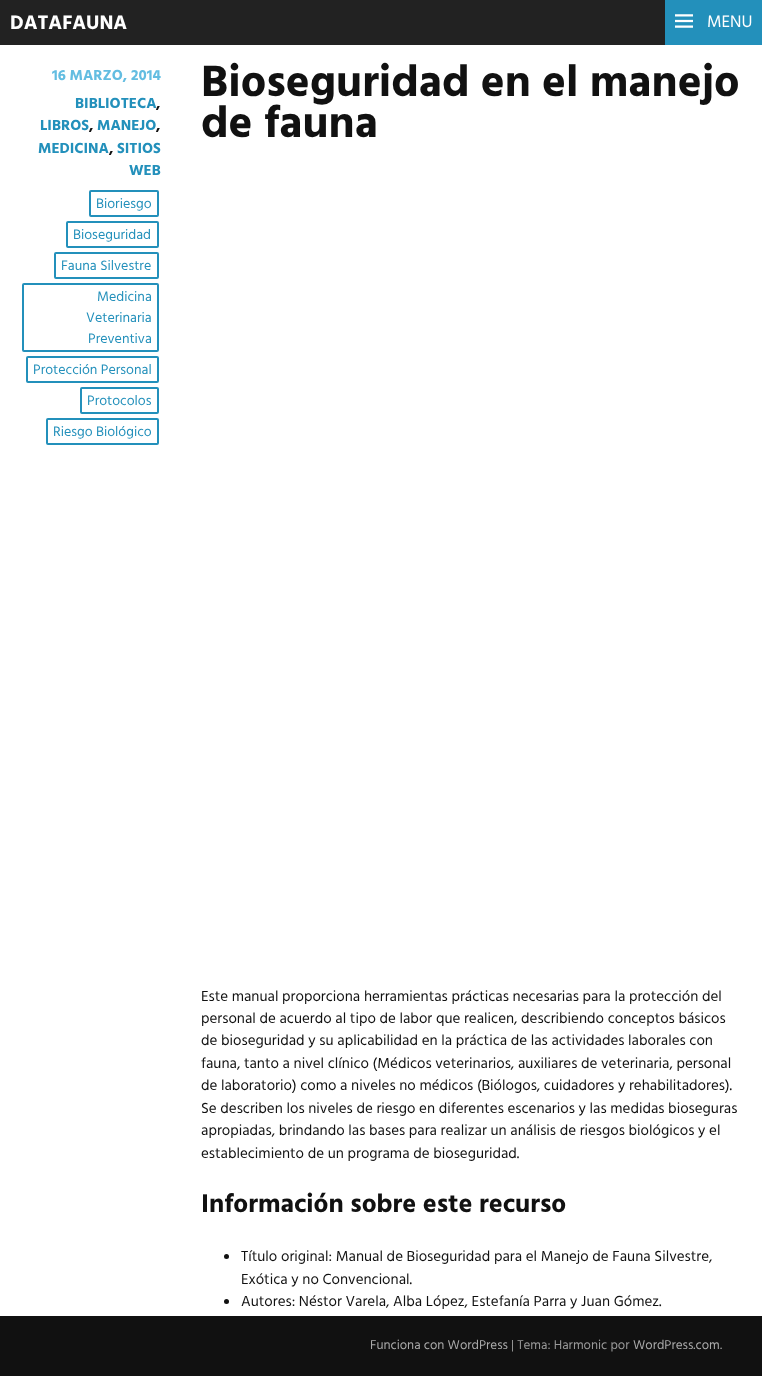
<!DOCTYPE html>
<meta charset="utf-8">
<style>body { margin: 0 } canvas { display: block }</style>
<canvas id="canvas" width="762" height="1376"></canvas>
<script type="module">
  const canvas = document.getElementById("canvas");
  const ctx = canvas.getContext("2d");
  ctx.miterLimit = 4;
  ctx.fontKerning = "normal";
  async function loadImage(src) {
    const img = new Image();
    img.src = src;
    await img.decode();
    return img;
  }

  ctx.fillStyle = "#ffffff";
  ctx.fillRect(0, 0, 762, 1376);
  ctx.fillStyle = "#222222";
  ctx.fillRect(0, 0, 665, 45);
  ctx.font = "bold 20px Hind";
  ctx.fillStyle = "#ffffff";
  ctx.fillText("DATAFAUNA", 10, 29);
  ctx.fillStyle = "#2390bb";
  ctx.fillRect(665, 0, 97, 45);
  ctx.drawImage(await loadImage("img1.png"), 675, 14, 18, 14);
  ctx.font = "17px Hind";
  ctx.fillStyle = "#ffffff";
  ctx.fillText("MENU", 707, 27);
  ctx.font = "bold 15px Hind";
  ctx.fillStyle = "#63bde1";
  ctx.fillText("16 MARZO, 2014", 52, 80);
  ctx.fillStyle = "#2390bb";
  ctx.fillText("BIBLIOTECA", 75, 108);
  ctx.fillStyle = "#111111";
  ctx.fillText(",", 156, 108);
  ctx.fillStyle = "#2390bb";
  ctx.fillText("LIBROS", 40, 130);
  ctx.fillStyle = "#111111";
  ctx.fillText(",", 89, 130);
  ctx.fillStyle = "#2390bb";
  ctx.fillText("MANEJO", 97, 130);
  ctx.fillStyle = "#111111";
  ctx.fillText(",", 156, 130);
  ctx.fillStyle = "#2390bb";
  ctx.fillText("MEDICINA", 38, 153);
  ctx.fillStyle = "#111111";
  ctx.fillText(",", 109, 153);
  ctx.fillStyle = "#2390bb";
  ctx.fillText("SITIOS", 117, 153);
  ctx.fillText("WEB", 129, 175);
  ctx.beginPath();
  ctx.roundRect(90, 191, 68, 25, 1);
  ctx.strokeStyle = "#2390bb";
  ctx.lineWidth = 2;
  ctx.stroke();
  ctx.font = "14px Hind";
  ctx.fillText("Bioriesgo", 96, 208);
  ctx.beginPath();
  ctx.roundRect(67, 222, 91, 25, 1);
  ctx.stroke();
  ctx.fillText("Bioseguridad", 73, 239);
  ctx.beginPath();
  ctx.roundRect(55, 253, 103, 25, 1);
  ctx.stroke();
  ctx.fillText("Fauna Silvestre", 61, 270);
  ctx.beginPath();
  ctx.roundRect(23, 284, 135, 67, 1);
  ctx.stroke();
  ctx.fillText("Medicina", 97, 301);
  ctx.fillText("Veterinaria", 86, 322);
  ctx.fillText("Preventiva", 88, 343);
  ctx.beginPath();
  ctx.roundRect(27, 357, 131, 25, 1);
  ctx.stroke();
  ctx.fillText("Protección Personal", 33, 374);
  ctx.beginPath();
  ctx.roundRect(81, 388, 77, 25, 1);
  ctx.stroke();
  ctx.fillText("Protocolos", 87, 405);
  ctx.beginPath();
  ctx.roundRect(47, 419, 111, 25, 1);
  ctx.stroke();
  ctx.fillText("Riesgo Biológico", 53, 436);
  ctx.font = "bold 45px Hind";
  ctx.fillStyle = "#111111";
  ctx.fillText("Bioseguridad en el manejo", 201, 96);
  ctx.fillText("de fauna", 201, 137);
  ctx.font = "15px Hind";
  ctx.fillText("Este manual proporciona herramientas prácticas necesarias para la protección del", 201, 1001);
  ctx.fillText("personal de acuerdo al tipo de labor que realicen, describiendo conceptos básicos", 201, 1023);
  ctx.fillText("de bioseguridad y su aplicabilidad en la práctica de las actividades laborales con", 201, 1045);
  ctx.fillText("fauna, tanto a nivel clínico (Médicos veterinarios, auxiliares de veterinaria, personal", 201, 1068);
  ctx.fillText("de laboratorio) como a niveles no médicos (Biólogos, cuidadores y rehabilitadores).", 201, 1090);
  ctx.fillText("Se describen los niveles de riesgo en diferentes escenarios y las medidas bioseguras", 201, 1113);
  ctx.fillText("apropiadas, brindando las bases para realizar un análisis de riesgos biológicos y el", 201, 1135);
  ctx.fillText("establecimiento de un programa de bioseguridad.", 201, 1158);
  ctx.font = "bold 26.25px Hind";
  ctx.fillText("Información sobre este recurso", 201, 1212);
  ctx.beginPath();
  ctx.arc(226.5, 1256.5, 2.5, 0, Math.PI * 2);
  ctx.fill();
  ctx.font = "15px Hind";
  ctx.fillText("Título original: Manual de Bioseguridad para el Manejo de Fauna Silvestre,", 241, 1261);
  ctx.fillText("Exótica y no Convencional.", 241, 1284);
  ctx.beginPath();
  ctx.arc(226.5, 1301.5, 2.5, 0, Math.PI * 2);
  ctx.fill();
  ctx.fillText("Autores: Néstor Varela, Alba López, Estefanía Parra y Juan Gómez.", 241, 1306);
  ctx.fillRect(0, 1316, 762, 60);
  ctx.font = "13.1px Hind";
  ctx.fillStyle = "#aaaaaa";
  ctx.fillText("Funciona con WordPress", 370, 1349);
  ctx.fillStyle = "#999999";
  ctx.fillText("| Tema: Harmonic por", 511, 1349);
  ctx.fillStyle = "#aaaaaa";
  ctx.fillText("WordPress.com", 633, 1349);
  ctx.fillStyle = "#999999";
  ctx.fillText(".", 720, 1349);
</script>
